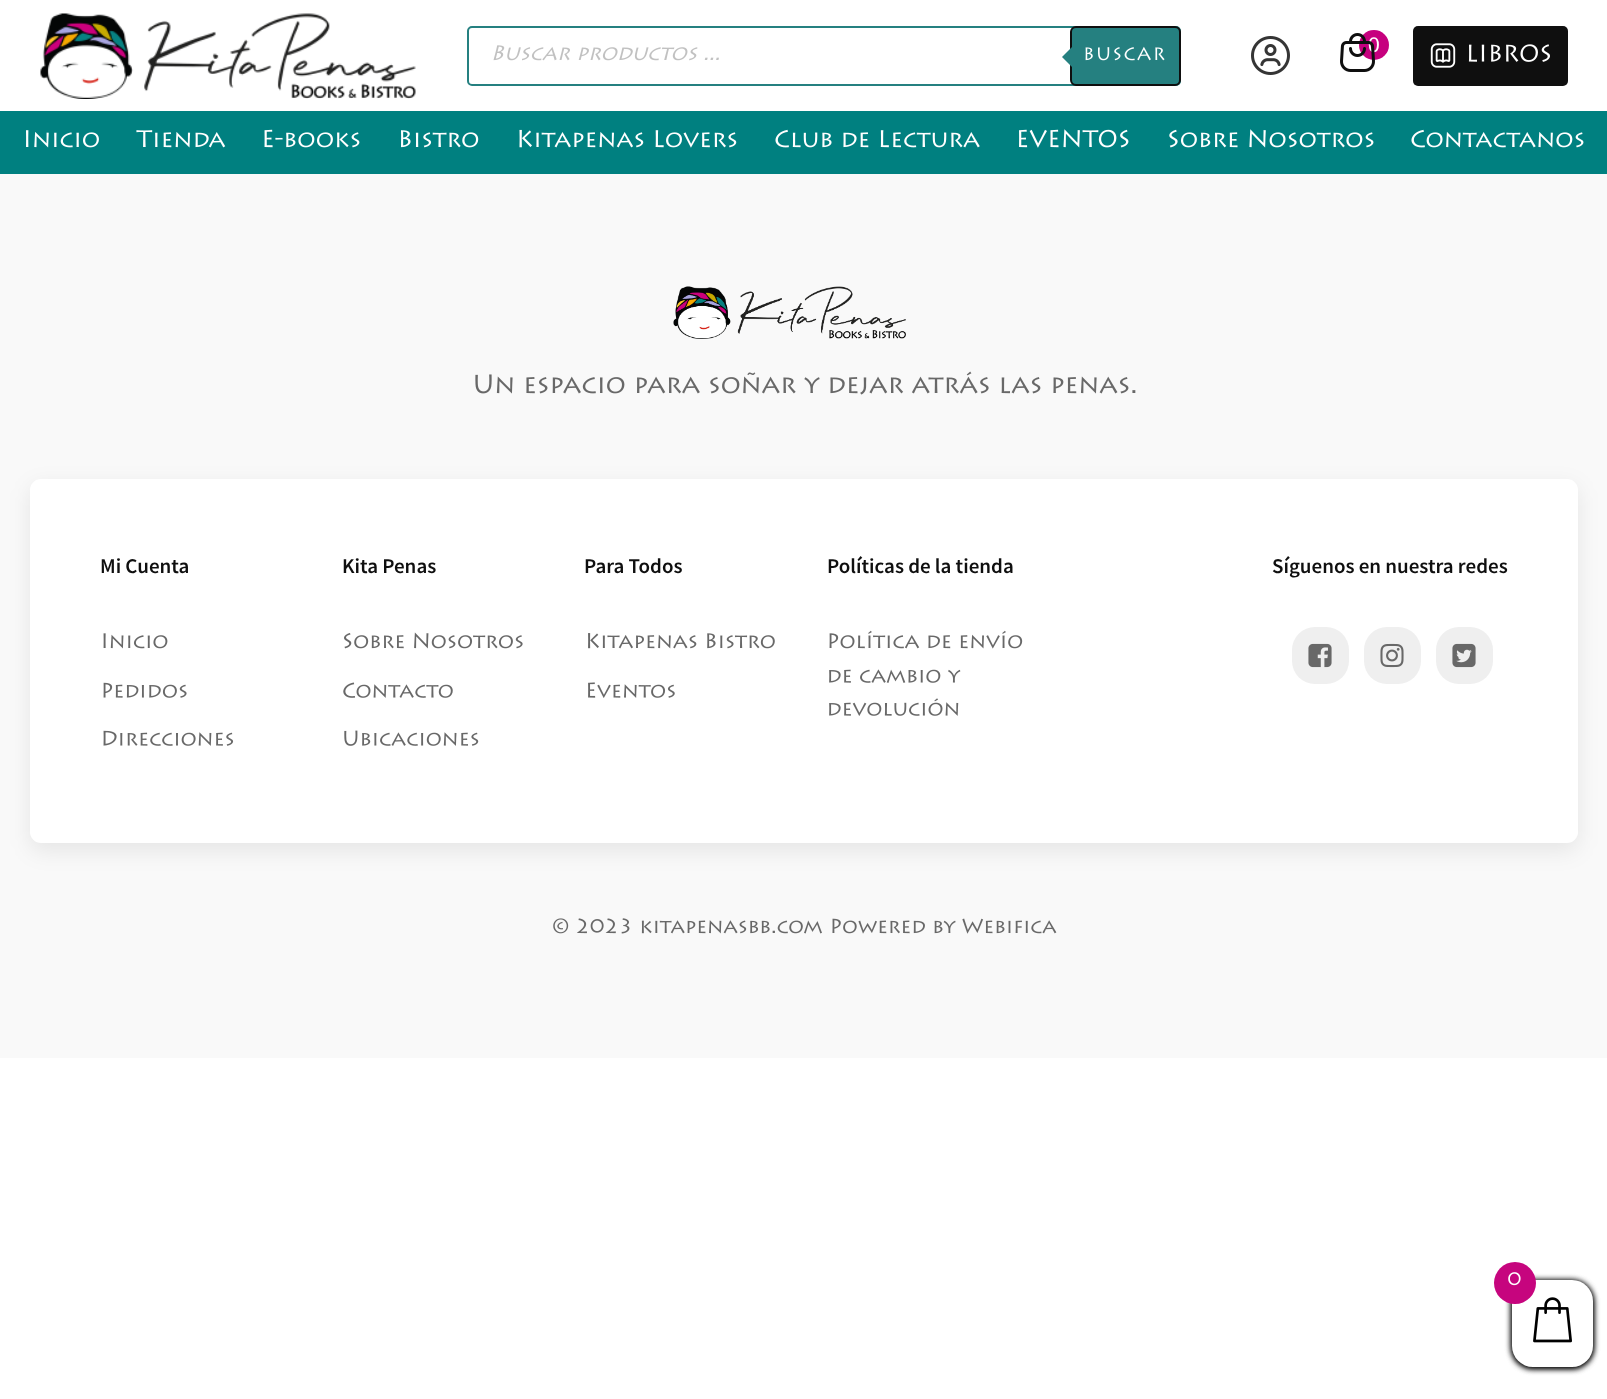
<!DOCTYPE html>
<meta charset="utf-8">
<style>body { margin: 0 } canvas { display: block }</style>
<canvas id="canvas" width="1607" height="1399"></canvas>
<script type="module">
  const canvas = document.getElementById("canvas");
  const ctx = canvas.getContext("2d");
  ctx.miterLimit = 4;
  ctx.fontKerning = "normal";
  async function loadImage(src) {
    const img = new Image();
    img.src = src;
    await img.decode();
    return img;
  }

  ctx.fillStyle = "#ffffff";
  ctx.fillRect(0, 0, 1607, 1399);
  ctx.drawImage(await loadImage("img1.png"), 40, 13, 376, 86);
  ctx.beginPath();
  ctx.roundRect(468, 27, 712, 58, 4);
  ctx.strokeStyle = "#258080";
  ctx.lineWidth = 2;
  ctx.stroke();
  ctx.drawImage(await loadImage("img2.png"), 493, 45, 226, 16);
  ctx.fillStyle = "#258080";
  ctx.beginPath();
  ctx.roundRect(1071, 27, 109, 58, 5);
  ctx.fill();
  ctx.strokeStyle = "#0f0f0f";
  ctx.stroke();
  ctx.beginPath();
  ctx.moveTo(1074, 45);
  ctx.lineTo(1074, 69);
  ctx.lineTo(1062, 57);
  ctx.closePath();
  ctx.fill();
  ctx.drawImage(await loadImage("img3.png"), 1085, 46, 80, 15);
  ctx.drawImage(await loadImage("img4.png"), 1251, 36, 39, 39);
  ctx.fillStyle = "#c6007e";
  ctx.beginPath();
  ctx.arc(1374, 45, 15, 0, Math.PI * 2);
  ctx.fill();
  ctx.font = "21px Liberation Sans";
  ctx.fillStyle = "#ffffff";
  ctx.fillText("0", 1368, 52);
  ctx.drawImage(await loadImage("img5.png"), 1340, 33, 35, 39);
  ctx.fillStyle = "#0f0f0f";
  ctx.beginPath();
  ctx.roundRect(1413, 26, 155, 60, 5);
  ctx.fill();
  ctx.drawImage(await loadImage("img6.png"), 1430, 43, 26, 25);
  ctx.drawImage(await loadImage("img7.png"), 1468, 44, 82, 18);
  ctx.fillStyle = "#008080";
  ctx.fillRect(0, 111, 1607, 63);
  ctx.drawImage(await loadImage("img8.png"), 26, 130, 73, 18);
  ctx.drawImage(await loadImage("img9.png"), 136, 130, 90, 18);
  ctx.drawImage(await loadImage("img10.png"), 264, 129, 96, 19);
  ctx.drawImage(await loadImage("img11.png"), 401, 130, 78, 18);
  ctx.drawImage(await loadImage("img12.png"), 519, 129, 218, 19);
  ctx.drawImage(await loadImage("img13.png"), 775, 129, 205, 19);
  ctx.drawImage(await loadImage("img14.png"), 1019, 129, 110, 19);
  ctx.drawImage(await loadImage("img15.png"), 1169, 129, 205, 19);
  ctx.drawImage(await loadImage("img16.png"), 1411, 129, 173, 19);
  ctx.fillStyle = "#f9f9f9";
  ctx.fillRect(0, 174, 1607, 884);
  ctx.drawImage(await loadImage("img17.png"), 673, 286, 233, 53);
  ctx.drawImage(await loadImage("img18.png"), 475, 371, 661, 24);
  ctx.fillStyle = "rgba(0, 0, 0, 0.08)";
  ctx.filter = "blur(11px)";
  ctx.beginPath();
  ctx.roundRect(30, 486, 1548, 365, 11);
  ctx.fill();
  ctx.filter = "none";
  ctx.fillStyle = "#ffffff";
  ctx.beginPath();
  ctx.roundRect(30, 479, 1548, 364, 11);
  ctx.fill();
  ctx.font = "600 21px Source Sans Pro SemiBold";
  ctx.fillStyle = "#0f0f0f";
  ctx.fillText("Mi Cuenta", 100, 573);
  ctx.drawImage(await loadImage("img19.png"), 103, 633, 65, 16);
  ctx.drawImage(await loadImage("img20.png"), 103, 682, 84, 16);
  ctx.drawImage(await loadImage("img21.png"), 103, 730, 131, 16);
  ctx.fillText("Kita Penas", 342, 573);
  ctx.drawImage(await loadImage("img22.png"), 344, 632, 179, 17);
  ctx.drawImage(await loadImage("img23.png"), 343, 682, 110, 16);
  ctx.drawImage(await loadImage("img24.png"), 344, 730, 135, 16);
  ctx.fillText("Para Todos", 584, 573);
  ctx.drawImage(await loadImage("img25.png"), 588, 633, 187, 16);
  ctx.drawImage(await loadImage("img26.png"), 588, 682, 87, 16);
  ctx.fillText("Políticas de la tienda", 827, 573);
  ctx.drawImage(await loadImage("img27.png"), 829, 630, 194, 19);
  ctx.drawImage(await loadImage("img28.png"), 829, 669, 132, 14);
  ctx.drawImage(await loadImage("img29.png"), 829, 698, 130, 18);
  ctx.fillText("Síguenos en nuestra redes", 1272, 573);
  ctx.fillStyle = "#efefef";
  ctx.beginPath();
  ctx.roundRect(1292, 627, 57, 57, 23);
  ctx.fill();
  ctx.drawImage(await loadImage("img30.png"), 1308, 643, 24, 25);
  ctx.beginPath();
  ctx.roundRect(1364, 627, 57, 57, 23);
  ctx.fill();
  ctx.drawImage(await loadImage("img31.png"), 1380, 643, 24, 25);
  ctx.beginPath();
  ctx.roundRect(1436, 627, 57, 57, 23);
  ctx.fill();
  ctx.drawImage(await loadImage("img32.png"), 1452, 643, 24, 25);
  ctx.drawImage(await loadImage("img33.png"), 553, 918, 269, 16);
  ctx.drawImage(await loadImage("img34.png"), 832, 918, 225, 16);
  ctx.fillStyle = "#000000";
  ctx.filter = "blur(3px)";
  ctx.beginPath();
  ctx.roundRect(1512, 1281, 81, 87, 21);
  ctx.fill();
  ctx.filter = "none";
  ctx.filter = "blur(3px)";
  ctx.beginPath();
  ctx.roundRect(1512, 1281, 81, 87, 21);
  ctx.fill();
  ctx.filter = "none";
  ctx.fillStyle = "#ffffff";
  ctx.beginPath();
  ctx.roundRect(1512, 1280, 81, 87, 21);
  ctx.fill();
  ctx.fillStyle = "#c6057e";
  ctx.beginPath();
  ctx.arc(1515, 1283, 21, 0, Math.PI * 2);
  ctx.fill();
  ctx.drawImage(await loadImage("img35.png"), 1508, 1272, 13, 14);
  ctx.drawImage(await loadImage("img36.png"), 1533, 1297, 39, 46);
</script>
